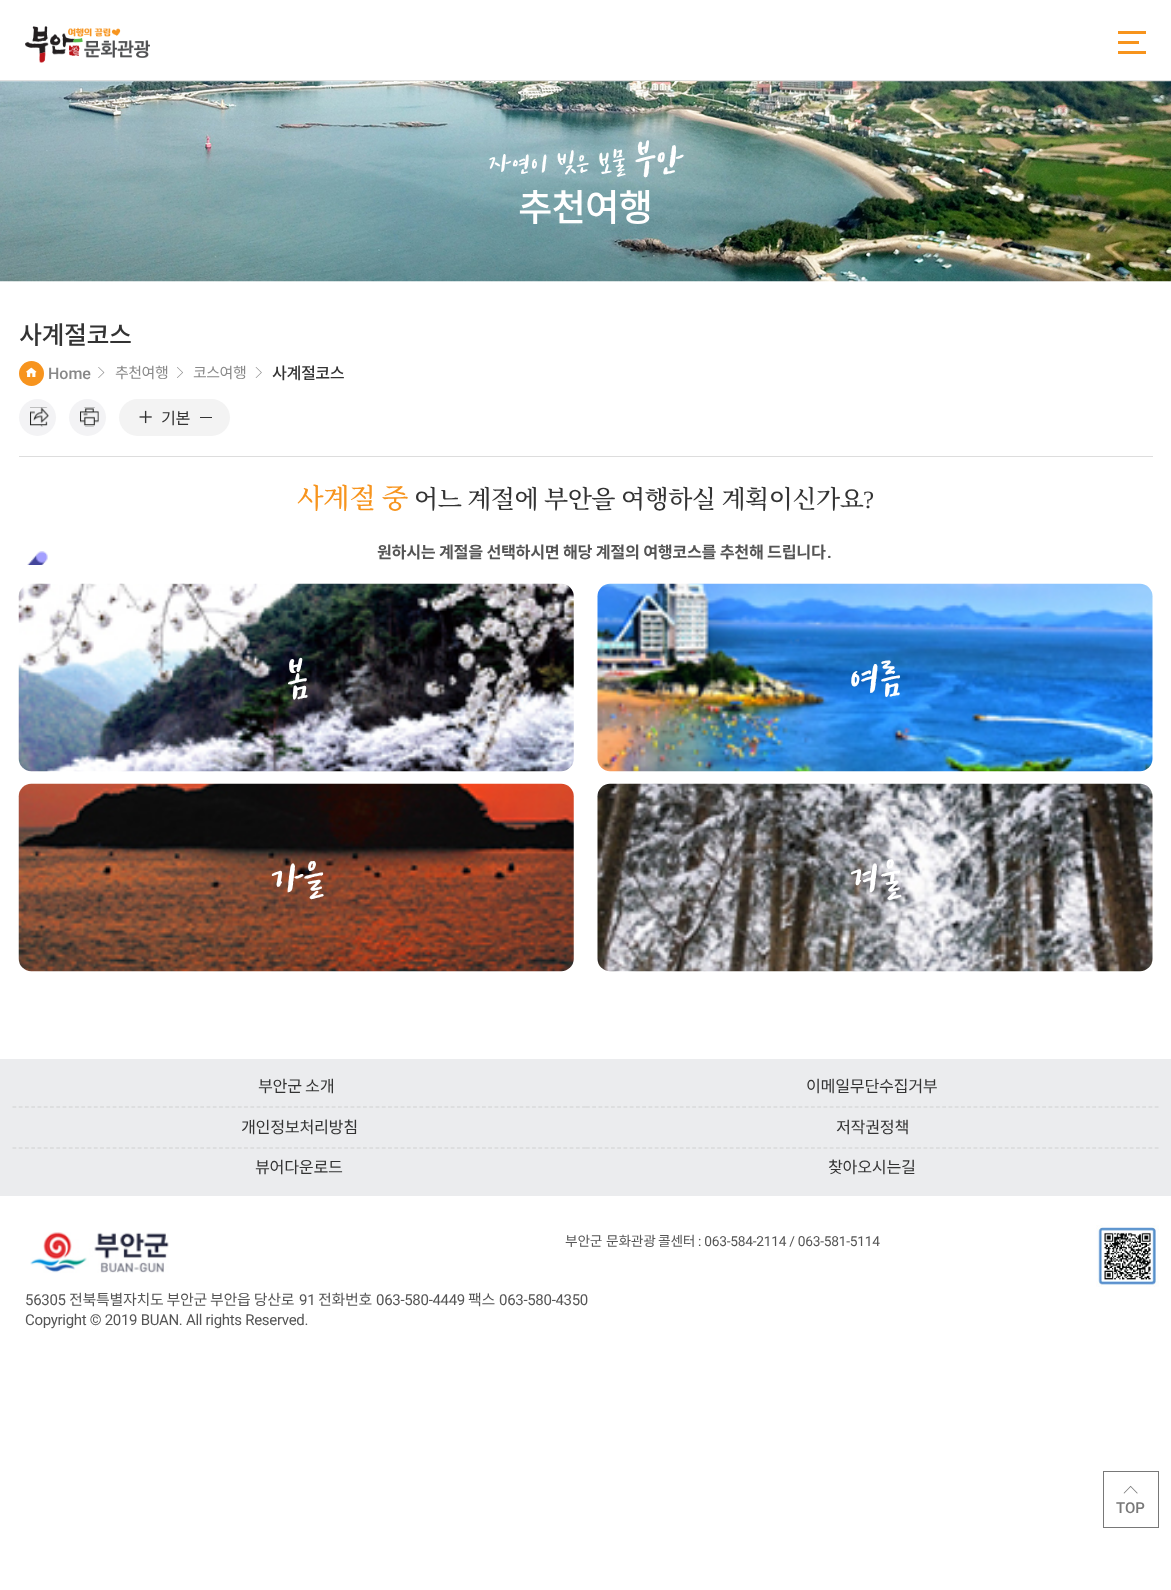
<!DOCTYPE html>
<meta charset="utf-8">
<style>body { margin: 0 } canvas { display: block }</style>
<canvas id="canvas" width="1171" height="1590"></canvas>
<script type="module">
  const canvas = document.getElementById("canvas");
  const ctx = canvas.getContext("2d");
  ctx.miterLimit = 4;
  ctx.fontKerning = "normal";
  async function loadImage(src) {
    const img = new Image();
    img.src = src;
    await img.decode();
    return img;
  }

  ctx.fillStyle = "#ffffff";
  ctx.fillRect(0, 0, 1171, 1590);
  ctx.fillStyle = "#e1e1e1";
  ctx.fillRect(0, 80, 1171, 1);
  ctx.drawImage(await loadImage("img1.png"), 25, 26, 125, 37);
  ctx.fillStyle = "#f7941d";
  ctx.fillRect(1118, 31, 28, 3);
  ctx.fillRect(1118, 41, 21, 3);
  ctx.fillRect(1118, 51, 28, 3);
  ctx.drawImage(await loadImage("img2.png"), 0, 81, 1171, 201);
  ctx.font = "bold 31.25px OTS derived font";
  ctx.fillStyle = "#ffffff";
  ctx.fillText("자연이 빚은 보물", 488, 173);
  ctx.letterSpacing = "-1px";
  ctx.font = "bold 47px OTS derived font";
  ctx.fillText("부안", 634, 173);
  ctx.font = "500 37.5px Noto Sans KR";
  ctx.fillText("추천여행", 518, 221);
  ctx.fillStyle = "#dddddd";
  ctx.fillRect(19, 456, 1134, 1);
  ctx.letterSpacing = "-0.5px";
  ctx.font = "500 25px Noto Sans KR";
  ctx.fillStyle = "#333333";
  ctx.fillText("사계절코스", 19, 344);
  ctx.fillStyle = "#f7941e";
  ctx.beginPath();
  ctx.arc(31.5, 373.5, 12.5, 0, Math.PI * 2);
  ctx.fill();
  ctx.drawImage(await loadImage("img3.png"), 26, 367, 11, 10);
  ctx.letterSpacing = "0px";
  ctx.font = "500 16px Roboto";
  ctx.fillStyle = "#888888";
  ctx.fillText("Home", 48, 379);
  ctx.drawImage(await loadImage("img4.png"), 98, 367, 7, 11);
  ctx.letterSpacing = "-0.5px";
  ctx.font = "15px Noto Sans KR";
  ctx.fillText("추천여행", 115, 378);
  ctx.drawImage(await loadImage("img5.png"), 177, 367, 6, 11);
  ctx.fillText("코스여행", 193, 378);
  ctx.drawImage(await loadImage("img6.png"), 255, 367, 7, 11);
  ctx.font = "500 16.25px Noto Sans KR";
  ctx.fillStyle = "#333333";
  ctx.fillText("사계절코스", 272, 379);
  ctx.fillStyle = "#f3f3f5";
  ctx.beginPath();
  ctx.arc(37.5, 417.5, 18.5, 0, Math.PI * 2);
  ctx.fill();
  ctx.drawImage(await loadImage("img7.png"), 30, 407, 19, 20);
  ctx.beginPath();
  ctx.arc(87.5, 417.5, 18.5, 0, Math.PI * 2);
  ctx.fill();
  ctx.drawImage(await loadImage("img8.png"), 80, 407, 19, 20);
  ctx.fillStyle = "#f3f3f3";
  ctx.beginPath();
  ctx.roundRect(119, 399, 111, 37, 18.5);
  ctx.fill();
  ctx.drawImage(await loadImage("img9.png"), 139, 410, 13, 14);
  ctx.letterSpacing = "-0.35px";
  ctx.font = "16.25px Noto Sans KR";
  ctx.fillStyle = "#333333";
  ctx.fillText("기본", 161, 424);
  ctx.fillRect(200, 417, 12, 1);
  ctx.letterSpacing = "-0.5px";
  ctx.font = "27.5px OTS derived font";
  ctx.fillStyle = "#f7941d";
  ctx.fillText("사계절 중", 297, 508);
  ctx.font = "25px OTS derived font";
  ctx.fillStyle = "#333333";
  ctx.fillText("어느 계절에 부안을 여행하실 계획이신가요", 414, 508);
  ctx.font = "25px Liberation Serif";
  ctx.fillText("?", 863, 508);
  ctx.drawImage(await loadImage("img10.png"), 27, 551, 21, 14);
  ctx.letterSpacing = "-0.35px";
  ctx.wordSpacing = "0.25px";
  ctx.font = "bold 16.25px Noto Sans KR";
  ctx.fillStyle = "#555555";
  ctx.fillText("원하시는 계절을 선택하시면 해당 계절의 여행코스를 추천해 드립니다", 377, 558);
  ctx.wordSpacing = "0px";
  ctx.font = "bold 16.25px Roboto";
  ctx.fillText(".", 827, 558);
  ctx.drawImage(await loadImage("img11.png"), 18, 583, 556, 189);
  ctx.letterSpacing = "-1px";
  ctx.font = "bold 50px OTS derived font";
  ctx.fillStyle = "#ffffff";
  ctx.fillText("봄", 286, 694);
  ctx.drawImage(await loadImage("img12.png"), 597, 583, 556, 189);
  ctx.fillText("여름", 849, 694);
  ctx.drawImage(await loadImage("img13.png"), 18, 783, 556, 189);
  ctx.fillText("가을", 270, 894);
  ctx.drawImage(await loadImage("img14.png"), 597, 783, 556, 189);
  ctx.fillText("겨울", 849, 894);
  ctx.strokeStyle = "#787878";
  ctx.strokeRect(1103.5, 1471.5, 55, 56);
  ctx.drawImage(await loadImage("img15.png"), 1123, 1485, 15, 9);
  ctx.letterSpacing = "0px";
  ctx.font = "500 15px Roboto";
  ctx.fillStyle = "#787878";
  ctx.fillText("TOP", 1116, 1513);
  ctx.fillStyle = "#ebecee";
  ctx.fillRect(0, 1059, 1171, 137);
  ctx.letterSpacing = "-0.35px";
  ctx.font = "16.25px Noto Sans KR";
  ctx.fillStyle = "#333333";
  ctx.fillText("부안군 소개", 258, 1092);
  ctx.fillText("이메일무단수집거부", 806, 1092);
  ctx.beginPath();
  ctx.moveTo(12.5, 1107);
  ctx.lineTo(586, 1107);
  ctx.strokeStyle = "#cfcfcf";
  ctx.lineWidth = 1.2;
  ctx.setLineDash([3.75, 2.51]);
  ctx.stroke();
  ctx.fillText("개인정보처리방침", 241, 1133);
  ctx.beginPath();
  ctx.moveTo(586, 1107);
  ctx.lineTo(1159, 1107);
  ctx.setLineDash([3.75, 2.5]);
  ctx.stroke();
  ctx.fillText("저작권정책", 836, 1133);
  ctx.beginPath();
  ctx.moveTo(12.5, 1148);
  ctx.lineTo(586, 1148);
  ctx.setLineDash([3.75, 2.51]);
  ctx.stroke();
  ctx.fillText("뷰어다운로드", 255, 1173);
  ctx.beginPath();
  ctx.moveTo(586, 1148);
  ctx.lineTo(1159, 1148);
  ctx.setLineDash([3.75, 2.5]);
  ctx.stroke();
  ctx.fillText("찾아오시는길", 828, 1173);
  ctx.drawImage(await loadImage("img16.png"), 30, 1232, 139, 41);
  ctx.letterSpacing = "-0.25px";
  ctx.font = "13.75px Noto Sans KR";
  ctx.fillStyle = "#555555";
  ctx.fillText("부안군", 565, 1246);
  ctx.fillText("문화관광", 606, 1246);
  ctx.fillText("콜센터", 658, 1246);
  ctx.font = "13.75px Roboto";
  ctx.fillText(": 063-584-2114 / 063-581-5114", 698, 1246);
  ctx.letterSpacing = "-0.3px";
  ctx.font = "15px Roboto";
  ctx.fillText("56305", 25, 1305);
  ctx.font = "15px Noto Sans KR";
  ctx.fillText("전북특별자치도 부안군 부안읍 당산로", 69, 1305);
  ctx.font = "15px Roboto";
  ctx.fillText("91", 299, 1305);
  ctx.font = "15px Noto Sans KR";
  ctx.fillText("전화번호", 318, 1305);
  ctx.font = "15px Roboto";
  ctx.fillText("063-580-4449", 376, 1305);
  ctx.font = "15px Noto Sans KR";
  ctx.fillText("팩스", 468, 1305);
  ctx.font = "15px Roboto";
  ctx.fillText("063-580-4350", 499, 1305);
  ctx.fillText("Copyright © 2019 BUAN. All rights Reserved.", 25, 1325);
  ctx.drawImage(await loadImage("img17.png"), 1096, 1225, 63, 62);
</script>
